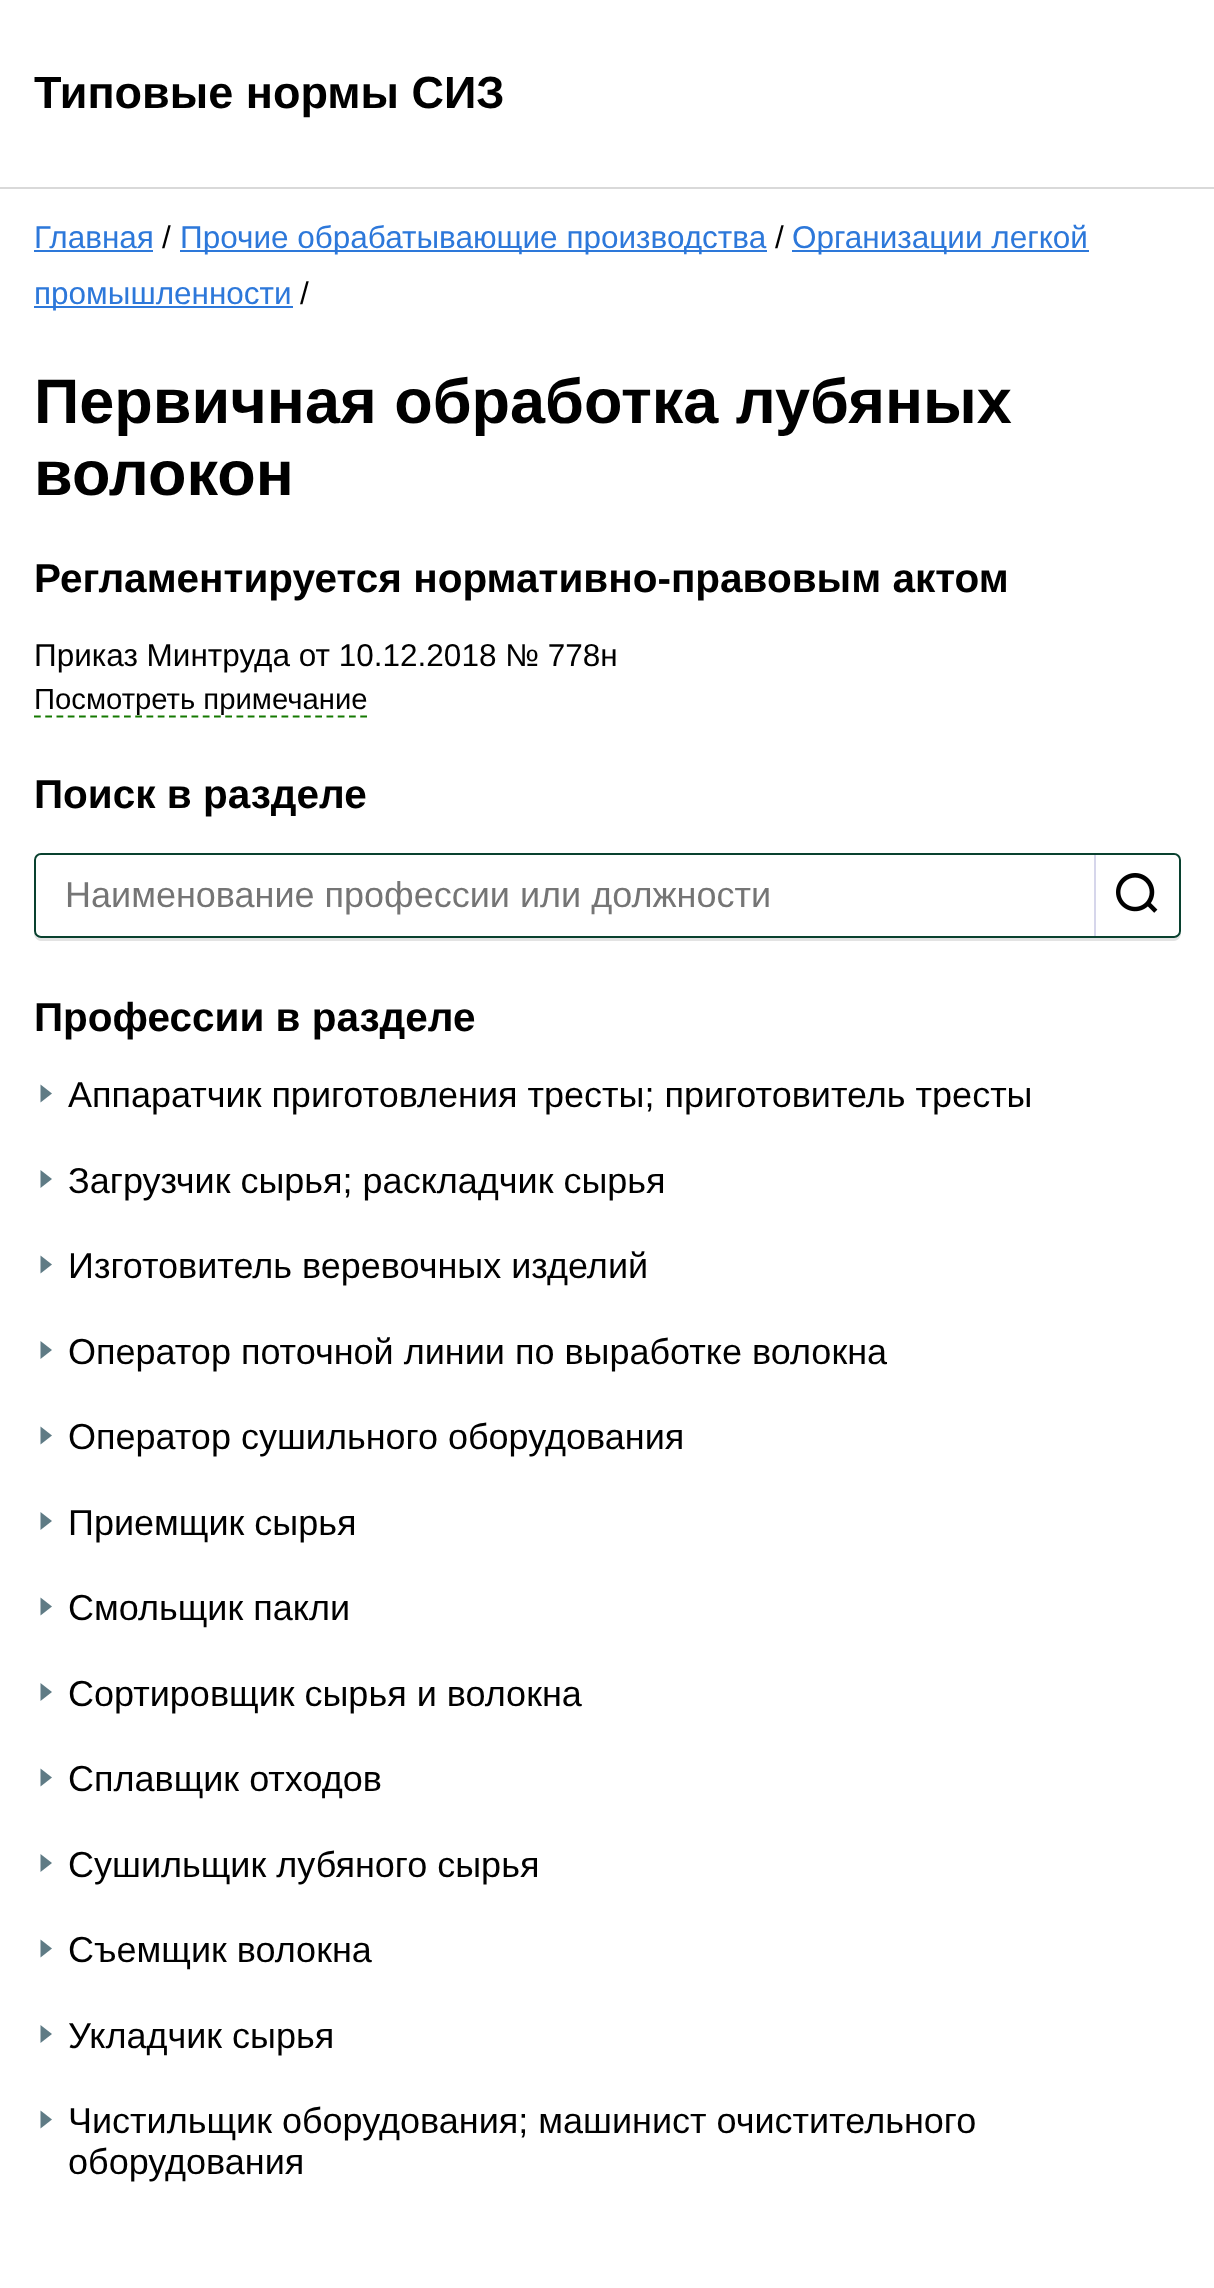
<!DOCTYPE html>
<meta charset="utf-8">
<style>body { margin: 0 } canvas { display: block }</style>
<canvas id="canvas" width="1214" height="2288"></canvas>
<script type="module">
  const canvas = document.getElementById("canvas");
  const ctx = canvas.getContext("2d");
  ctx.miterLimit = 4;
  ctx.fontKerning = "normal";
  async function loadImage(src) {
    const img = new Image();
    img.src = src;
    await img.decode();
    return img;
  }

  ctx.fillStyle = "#ffffff";
  ctx.fillRect(0, 0, 1214, 2288);
  ctx.fillStyle = "#d9d9d9";
  ctx.fillRect(0, 187, 1214, 2);
  ctx.font = "bold 45px Liberation Sans";
  ctx.fillStyle = "#000000";
  ctx.fillText("Типовые нормы СИЗ", 34, 108);
  ctx.font = "31.5px Liberation Sans";
  ctx.fillStyle = "#2d78da";
  ctx.fillText("Главная", 34, 248);
  ctx.fillRect(34, 250, 119, 2);
  ctx.fillStyle = "#000000";
  ctx.fillText("/", 162, 248);
  ctx.fillStyle = "#2d78da";
  ctx.fillRect(180, 250, 587, 2);
  ctx.fillText("Прочие обрабатывающие производства", 180, 248);
  ctx.fillStyle = "#000000";
  ctx.fillText("/", 775, 248);
  ctx.fillStyle = "#2d78da";
  ctx.fillRect(792, 250, 297, 2);
  ctx.fillText("Организации легкой", 792, 248);
  ctx.fillRect(34, 306, 259, 2);
  ctx.fillText("промышленности", 34, 304);
  ctx.fillStyle = "#000000";
  ctx.fillText("/", 300, 304);
  ctx.font = "bold 63px Liberation Sans";
  ctx.fillText("Первичная обработка лубяных", 34, 423);
  ctx.fillText("волокон", 34, 495);
  ctx.font = "bold 40.5px Liberation Sans";
  ctx.fillText("Регламентируется нормативно-правовым актом", 34, 592);
  ctx.font = "31.5px Liberation Sans";
  ctx.fillText("Приказ Минтруда от 10.12.2018 № 778н", 34, 666);
  ctx.beginPath();
  ctx.moveTo(34, 716.5);
  ctx.lineTo(367, 716.5);
  ctx.strokeStyle = "#147900";
  ctx.lineWidth = 2.2;
  ctx.setLineDash([6.75, 4.5]);
  ctx.stroke();
  ctx.font = "29.25px Liberation Sans";
  ctx.fillText("Посмотреть примечание", 34, 709);
  ctx.font = "bold 40.5px Liberation Sans";
  ctx.fillText("Поиск в разделе", 34, 808);
  ctx.fillStyle = "#e3e3e3";
  ctx.beginPath();
  ctx.moveTo(34, 933);
  ctx.bezierCurveTo(34, 937, 37, 941, 41, 941);
  ctx.lineTo(1174, 941);
  ctx.bezierCurveTo(1178, 941, 1181, 937, 1181, 933);
  ctx.bezierCurveTo(1180, 936, 1178, 938, 1174, 938);
  ctx.lineTo(40, 938);
  ctx.bezierCurveTo(37, 938, 35, 936, 34, 933);
  ctx.closePath();
  ctx.fill();
  ctx.fillStyle = "#ffffff";
  ctx.beginPath();
  ctx.roundRect(35, 854, 1145, 83, 6);
  ctx.fill();
  ctx.strokeStyle = "#09412f";
  ctx.lineWidth = 2;
  ctx.setLineDash([]);
  ctx.stroke();
  ctx.font = "36px Liberation Sans";
  ctx.fillStyle = "#757575";
  ctx.fillText("Наименование профессии или должности", 65, 907);
  ctx.fillStyle = "#ffffff";
  ctx.beginPath();
  ctx.roundRect(1094, 855, 85, 81, [0, 7, 7, 0]);
  ctx.fill();
  ctx.drawImage(await loadImage("img1.png"), 1116, 873, 42, 40);
  ctx.fillStyle = "#d6d6eb";
  ctx.fillRect(1094, 855, 2, 81);
  ctx.font = "bold 40.5px Liberation Sans";
  ctx.fillStyle = "#000000";
  ctx.fillText("Профессии в разделе", 34, 1031);
  ctx.fillStyle = "#5f7b85";
  ctx.beginPath();
  ctx.moveTo(40.5, 1102.5);
  ctx.lineTo(40.5, 1084.5);
  ctx.lineTo(52, 1093.5);
  ctx.closePath();
  ctx.fill();
  ctx.font = "36px Liberation Sans";
  ctx.fillStyle = "#000000";
  ctx.fillText("Аппаратчик приготовления тресты; приготовитель тресты", 68, 1107);
  ctx.fillStyle = "#5f7b85";
  ctx.beginPath();
  ctx.moveTo(40.5, 1188);
  ctx.lineTo(40.5, 1170);
  ctx.lineTo(52, 1179);
  ctx.closePath();
  ctx.fill();
  ctx.fillStyle = "#000000";
  ctx.fillText("Загрузчик сырья; раскладчик сырья", 68, 1193);
  ctx.fillStyle = "#5f7b85";
  ctx.beginPath();
  ctx.moveTo(40.5, 1273.5);
  ctx.lineTo(40.5, 1255.5);
  ctx.lineTo(52, 1264.5);
  ctx.closePath();
  ctx.fill();
  ctx.fillStyle = "#000000";
  ctx.fillText("Изготовитель веревочных изделий", 68, 1278);
  ctx.fillStyle = "#5f7b85";
  ctx.beginPath();
  ctx.moveTo(40.5, 1359);
  ctx.lineTo(40.5, 1341);
  ctx.lineTo(52, 1350);
  ctx.closePath();
  ctx.fill();
  ctx.fillStyle = "#000000";
  ctx.fillText("Оператор поточной линии по выработке волокна", 68, 1364);
  ctx.fillStyle = "#5f7b85";
  ctx.beginPath();
  ctx.moveTo(40.5, 1444.5);
  ctx.lineTo(40.5, 1426.5);
  ctx.lineTo(52, 1435.5);
  ctx.closePath();
  ctx.fill();
  ctx.fillStyle = "#000000";
  ctx.fillText("Оператор сушильного оборудования", 68, 1449);
  ctx.fillStyle = "#5f7b85";
  ctx.beginPath();
  ctx.moveTo(40.5, 1530);
  ctx.lineTo(40.5, 1512);
  ctx.lineTo(52, 1521);
  ctx.closePath();
  ctx.fill();
  ctx.fillStyle = "#000000";
  ctx.fillText("Приемщик сырья", 68, 1535);
  ctx.fillStyle = "#5f7b85";
  ctx.beginPath();
  ctx.moveTo(40.5, 1615.5);
  ctx.lineTo(40.5, 1597.5);
  ctx.lineTo(52, 1606.5);
  ctx.closePath();
  ctx.fill();
  ctx.fillStyle = "#000000";
  ctx.fillText("Смольщик пакли", 68, 1620);
  ctx.fillStyle = "#5f7b85";
  ctx.beginPath();
  ctx.moveTo(40.5, 1701);
  ctx.lineTo(40.5, 1683);
  ctx.lineTo(52, 1692);
  ctx.closePath();
  ctx.fill();
  ctx.fillStyle = "#000000";
  ctx.fillText("Сортировщик сырья и волокна", 68, 1706);
  ctx.fillStyle = "#5f7b85";
  ctx.beginPath();
  ctx.moveTo(40.5, 1786.5);
  ctx.lineTo(40.5, 1768.5);
  ctx.lineTo(52, 1777.5);
  ctx.closePath();
  ctx.fill();
  ctx.fillStyle = "#000000";
  ctx.fillText("Сплавщик отходов", 68, 1791);
  ctx.fillStyle = "#5f7b85";
  ctx.beginPath();
  ctx.moveTo(40.5, 1872);
  ctx.lineTo(40.5, 1854);
  ctx.lineTo(52, 1863);
  ctx.closePath();
  ctx.fill();
  ctx.fillStyle = "#000000";
  ctx.fillText("Сушильщик лубяного сырья", 68, 1877);
  ctx.fillStyle = "#5f7b85";
  ctx.beginPath();
  ctx.moveTo(40.5, 1957.5);
  ctx.lineTo(40.5, 1939.5);
  ctx.lineTo(52, 1948.5);
  ctx.closePath();
  ctx.fill();
  ctx.fillStyle = "#000000";
  ctx.fillText("Съемщик волокна", 68, 1962);
  ctx.fillStyle = "#5f7b85";
  ctx.beginPath();
  ctx.moveTo(40.5, 2043);
  ctx.lineTo(40.5, 2025);
  ctx.lineTo(52, 2034);
  ctx.closePath();
  ctx.fill();
  ctx.fillStyle = "#000000";
  ctx.fillText("Укладчик сырья", 68, 2048);
  ctx.fillStyle = "#5f7b85";
  ctx.beginPath();
  ctx.moveTo(40.5, 2128.5);
  ctx.lineTo(40.5, 2110.5);
  ctx.lineTo(52, 2119.5);
  ctx.closePath();
  ctx.fill();
  ctx.fillStyle = "#000000";
  ctx.fillText("Чистильщик оборудования; машинист очистительного", 68, 2133);
  ctx.fillText("оборудования", 68, 2174);
</script>
